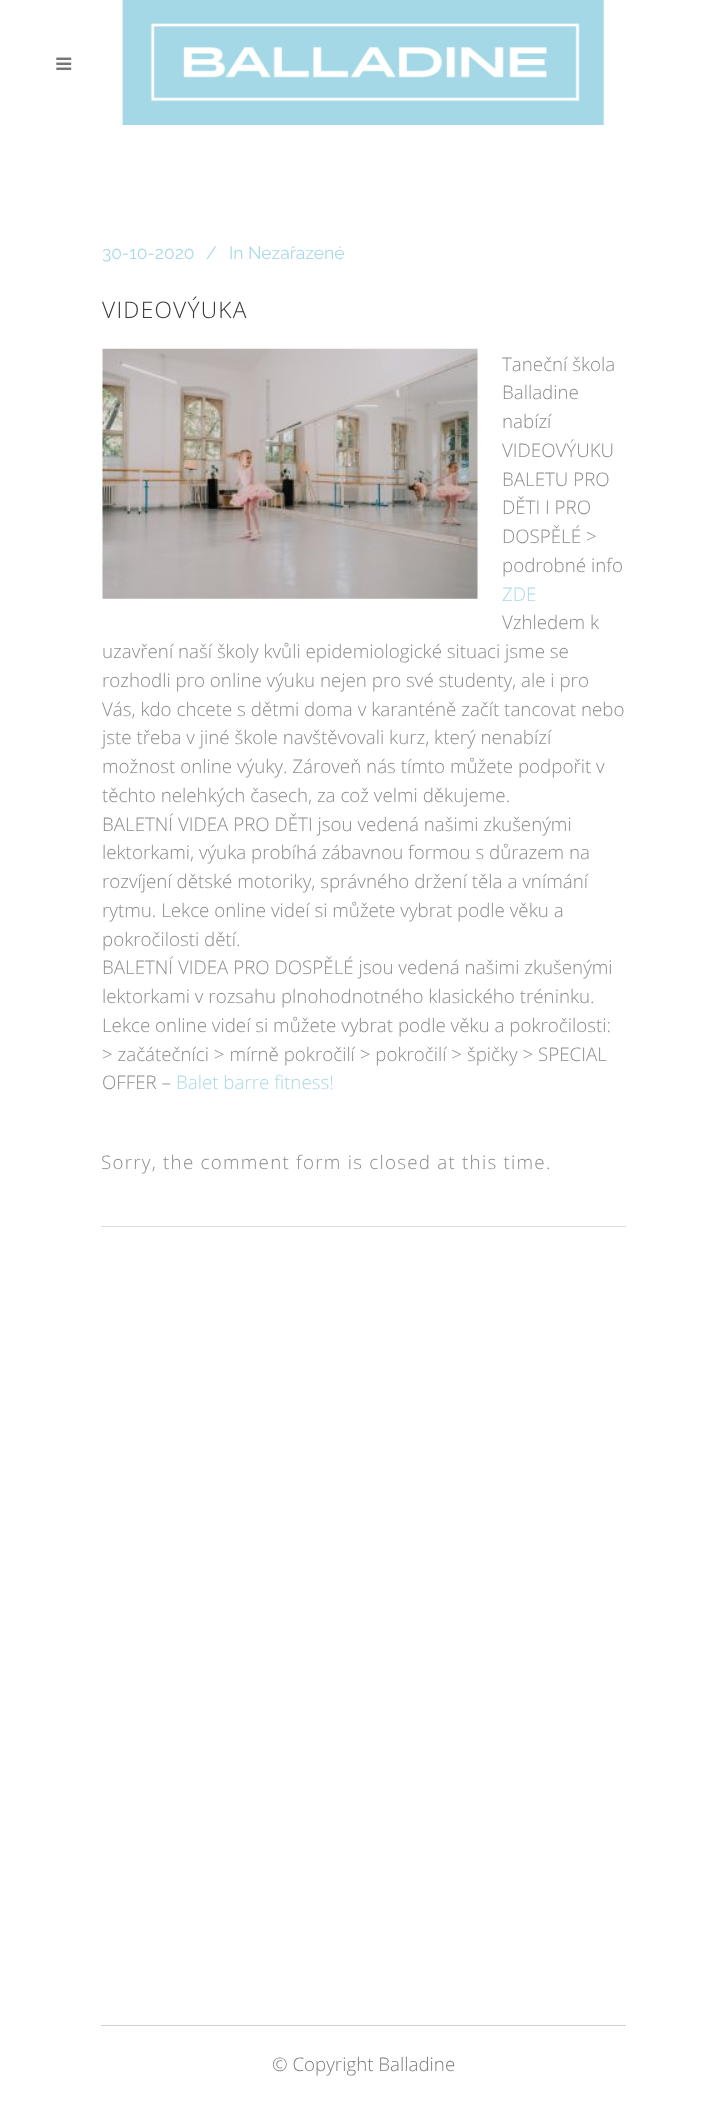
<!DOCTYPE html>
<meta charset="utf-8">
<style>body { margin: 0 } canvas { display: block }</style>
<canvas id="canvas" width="726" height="2101"></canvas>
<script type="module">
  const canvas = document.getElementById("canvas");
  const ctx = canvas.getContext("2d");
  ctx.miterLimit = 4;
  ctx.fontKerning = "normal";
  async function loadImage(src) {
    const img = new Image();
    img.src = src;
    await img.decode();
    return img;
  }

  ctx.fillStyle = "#ffffff";
  ctx.fillRect(0, 0, 726, 2101);
  ctx.drawImage(await loadImage("img1.png"), 56, 57, 16, 13);
  ctx.drawImage(await loadImage("img2.png"), 122, 0, 482, 125);
  ctx.font = "17.5px Raleway";
  ctx.fillStyle = "#abd9e8";
  ctx.fillText("30-10-2020", 102, 259);
  ctx.fillText("/", 206, 259);
  ctx.fillText("In Nezařazené", 229, 259);
  ctx.letterSpacing = "1.25px";
  ctx.font = "300 22.75px Open Sans";
  ctx.fillStyle = "#393939";
  ctx.fillText("VIDEOVÝUKA", 102, 318);
  ctx.drawImage(await loadImage("img3.png"), 102, 348, 376, 251);
  ctx.letterSpacing = "0px";
  ctx.font = "300 18.75px Open Sans";
  ctx.fillStyle = "#8d8d8d";
  ctx.fillText("Taneční škola", 502, 371);
  ctx.fillText("Balladine", 502, 399);
  ctx.fillText("nabízí", 502, 428);
  ctx.fillText("VIDEOVÝUKU", 502, 457);
  ctx.fillText("BALETU PRO", 502, 486);
  ctx.fillText("DĚTI I PRO", 502, 514);
  ctx.fillText("DOSPĚLÉ >", 502, 543);
  ctx.fillText("podrobné info", 502, 572);
  ctx.fillStyle = "#abd9e8";
  ctx.fillText("ZDE", 502, 601);
  ctx.fillStyle = "#8d8d8d";
  ctx.fillText("Vzhledem k", 502, 629);
  ctx.fillText("uzavření naší školy kvůli epidemiologické situaci jsme se", 102, 658);
  ctx.fillText("rozhodli pro online výuku nejen pro své studenty, ale i pro", 102, 687);
  ctx.fillText("Vás, kdo chcete s dětmi doma v karanténě začít tancovat nebo", 102, 716);
  ctx.fillText("jste třeba v jiné škole navštěvovali kurz, který nenabízí", 102, 744);
  ctx.fillText("možnost online výuky. Zároveň nás tímto můžete podpořit v", 102, 773);
  ctx.fillText("těchto nelehkých časech, za což velmi děkujeme.", 102, 802);
  ctx.fillText("BALETNÍ VIDEA PRO DĚTI jsou vedená našimi zkušenými", 102, 831);
  ctx.fillText("lektorkami, výuka probíhá zábavnou formou s důrazem na", 102, 859);
  ctx.fillText("rozvíjení dětské motoriky, správného držení těla a vnímání", 102, 888);
  ctx.fillText("rytmu. Lekce online videí si můžete vybrat podle věku a", 102, 917);
  ctx.fillText("pokročilosti dětí.", 102, 946);
  ctx.fillText("BALETNÍ VIDEA PRO DOSPĚLÉ jsou vedená našimi zkušenými", 102, 974);
  ctx.fillText("lektorkami v rozsahu plnohodnotného klasického tréninku.", 102, 1003);
  ctx.fillText("Lekce online videí si můžete vybrat podle věku a pokročilosti:", 102, 1032);
  ctx.fillText("> začátečníci > mírně pokročilí > pokročilí > špičky > SPECIAL", 102, 1061);
  ctx.fillText("OFFER –", 102, 1089);
  ctx.fillStyle = "#abd9e8";
  ctx.fillText("Balet barre fitness!", 176, 1089);
  ctx.letterSpacing = "1.25px";
  ctx.fillStyle = "#8d8d8d";
  ctx.fillText("Sorry, the comment form is closed at this time.", 101, 1169);
  ctx.fillStyle = "#dddddd";
  ctx.fillRect(101, 1226, 525, 1);
  ctx.fillStyle = "#d0d0d0";
  ctx.fillRect(101, 2025, 525, 1);
  ctx.letterSpacing = "0px";
  ctx.fillStyle = "#7d7d7d";
  ctx.fillText("© Copyright Balladine", 272, 2071);
</script>
